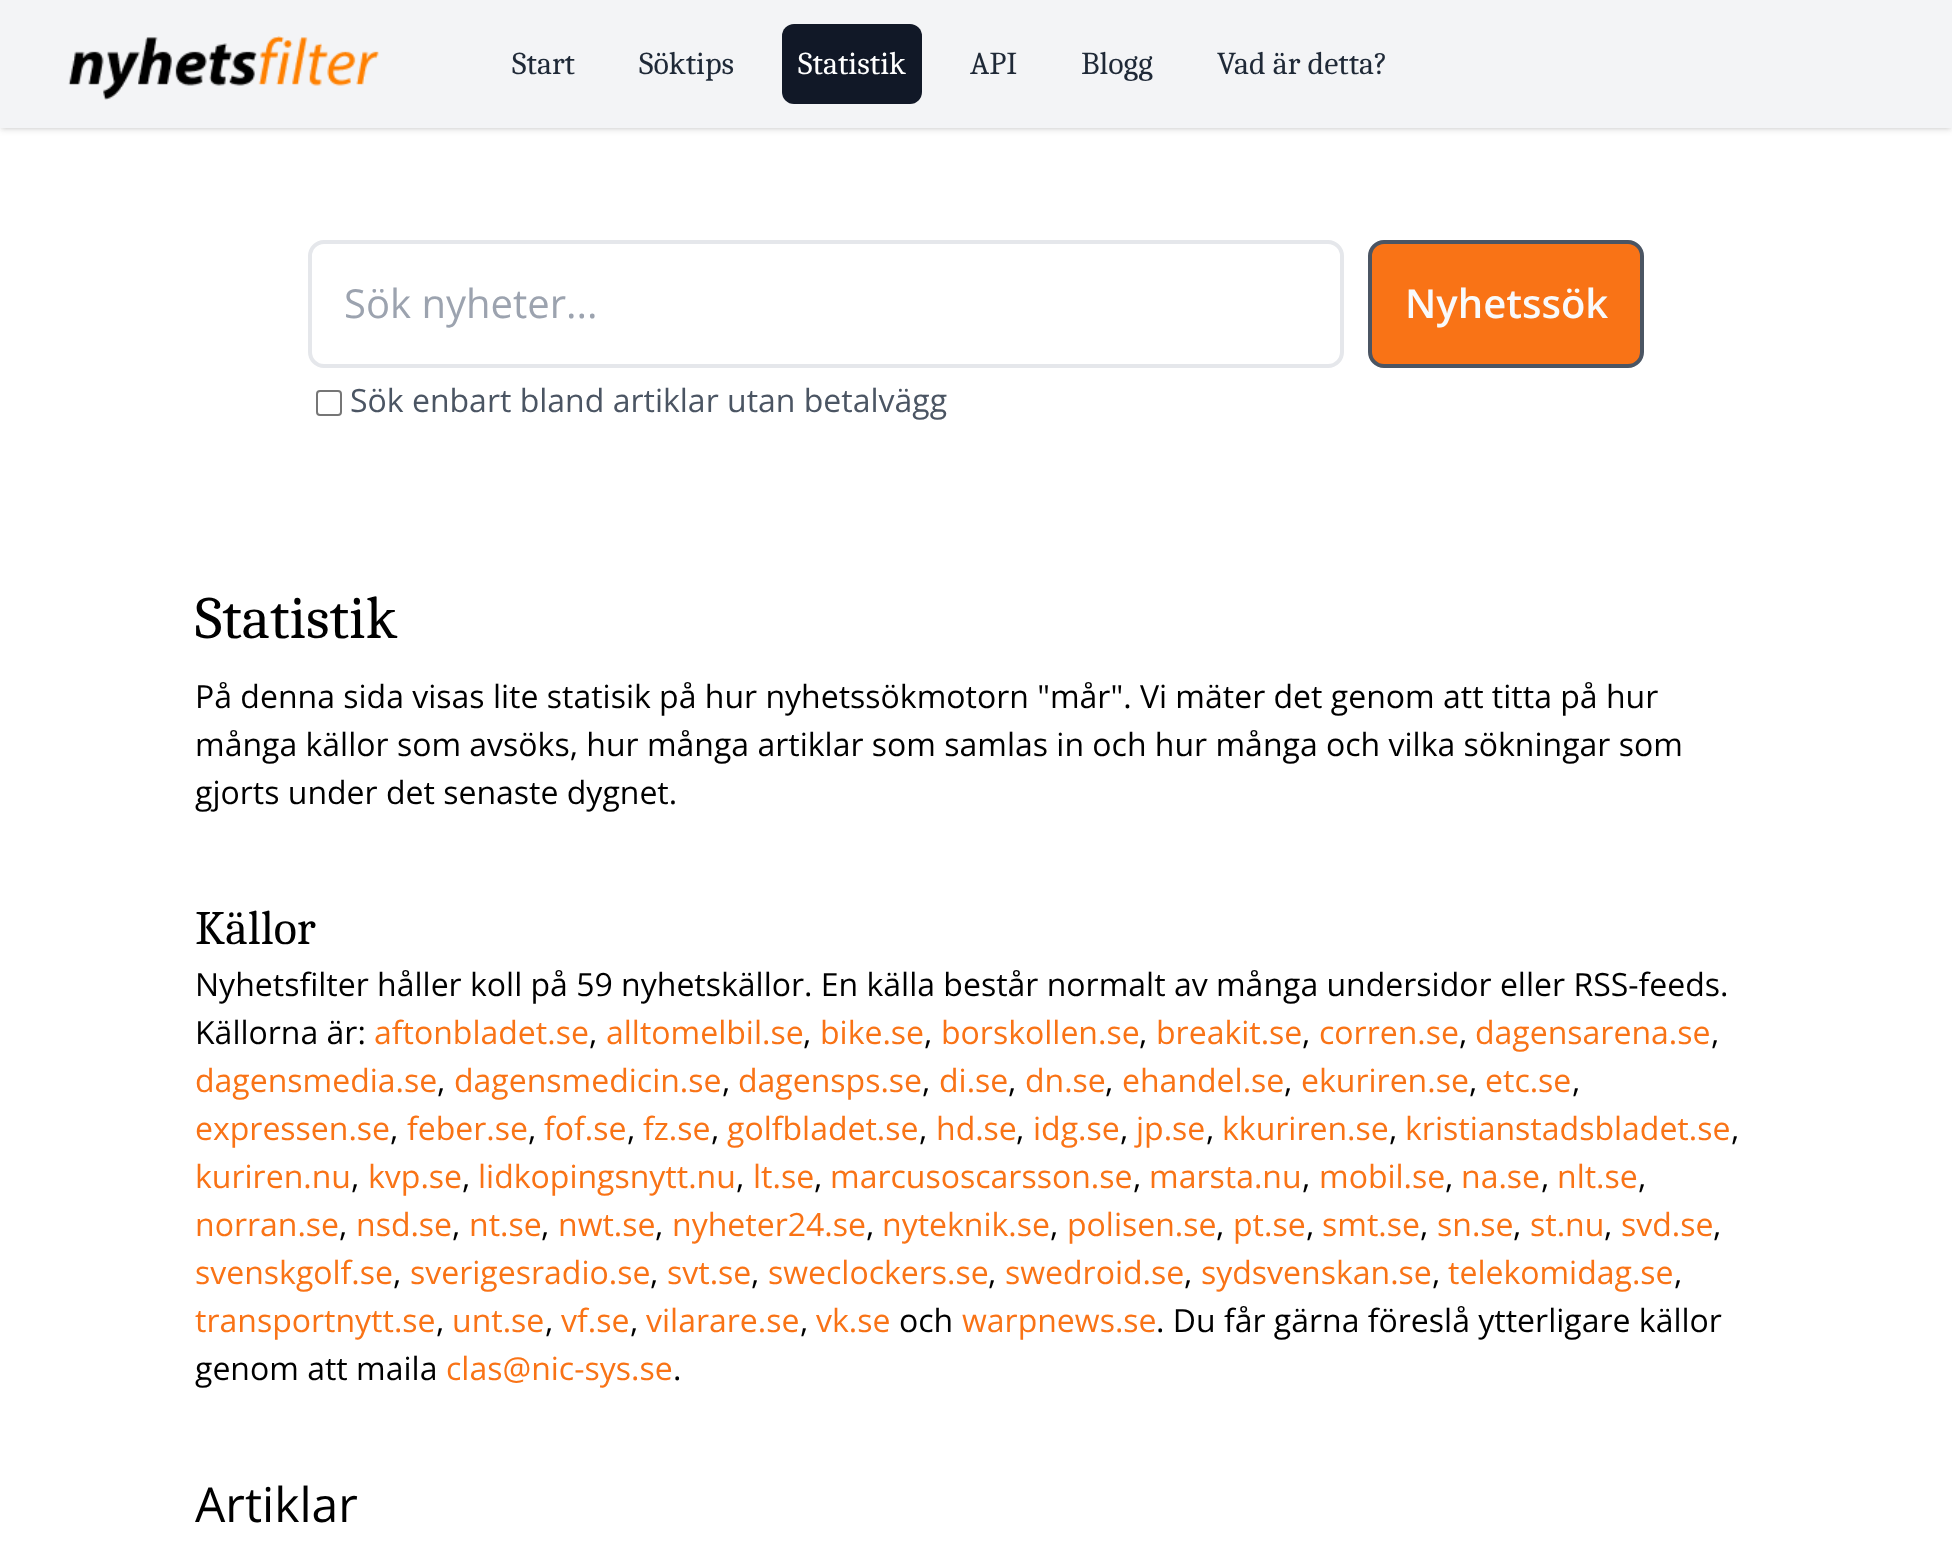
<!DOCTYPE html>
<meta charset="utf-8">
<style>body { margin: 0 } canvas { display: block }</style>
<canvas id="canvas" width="1952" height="1563"></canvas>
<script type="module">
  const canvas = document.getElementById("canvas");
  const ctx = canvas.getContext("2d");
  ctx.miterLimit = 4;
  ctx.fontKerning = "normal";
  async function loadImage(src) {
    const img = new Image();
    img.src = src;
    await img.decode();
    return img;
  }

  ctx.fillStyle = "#ffffff";
  ctx.fillRect(0, 0, 1952, 1563);
  ctx.fillStyle = "rgba(0, 0, 0, 0.1)";
  ctx.filter = "blur(2px)";
  ctx.beginPath();
  ctx.rect(2, 4, 1948, 124);
  ctx.fill();
  ctx.filter = "none";
  ctx.filter = "blur(3px)";
  ctx.beginPath();
  ctx.rect(0, 2, 1952, 128);
  ctx.fill();
  ctx.filter = "none";
  ctx.fillStyle = "#f3f4f6";
  ctx.fillRect(0, 0, 1952, 128);
  ctx.drawImage(await loadImage("img1.png"), 68, 36, 311, 64);
  ctx.font = "32px Caladea";
  ctx.fillStyle = "#1f2937";
  ctx.fillText("Start", 512, 74);
  ctx.fillText("Söktips", 639, 74);
  ctx.fillStyle = "#111827";
  ctx.beginPath();
  ctx.roundRect(782, 24, 140, 80, 12);
  ctx.fill();
  ctx.fillStyle = "#ffffff";
  ctx.fillText("Statistik", 798, 74);
  ctx.fillStyle = "#1f2937";
  ctx.fillText("API", 970, 74);
  ctx.fillText("Blogg", 1081, 74);
  ctx.fillText("Vad är detta?", 1217, 74);
  ctx.beginPath();
  ctx.roundRect(310, 242, 1032, 124, 14);
  ctx.strokeStyle = "#e5e7eb";
  ctx.lineWidth = 4;
  ctx.stroke();
  ctx.font = "40px Open Sans";
  ctx.fillStyle = "#9ca3af";
  ctx.fillText("Sök nyheter...", 344, 318);
  ctx.fillStyle = "#f97316";
  ctx.beginPath();
  ctx.roundRect(1370, 242, 272, 124, 14);
  ctx.fill();
  ctx.strokeStyle = "#4b5563";
  ctx.stroke();
  ctx.font = "600 40px Open Sans";
  ctx.fillStyle = "#f9fafb";
  ctx.fillText("Nyhetssök", 1405, 318);
  ctx.beginPath();
  ctx.roundRect(317, 391, 24, 24, 3);
  ctx.strokeStyle = "#767676";
  ctx.lineWidth = 2;
  ctx.stroke();
  ctx.font = "32px Open Sans";
  ctx.fillStyle = "#4b5563";
  ctx.fillText("Sök enbart bland artiklar utan betalvägg", 350, 412);
  ctx.font = "60px Caladea";
  ctx.fillStyle = "#000000";
  ctx.fillText("Statistik", 195, 638);
  ctx.font = "32px Open Sans";
  ctx.fillText("På denna sida visas lite statisik på hur nyhetssökmotorn \"mår\". Vi mäter det genom att titta på hur", 195, 708);
  ctx.fillText("många källor som avsöks, hur många artiklar som samlas in och hur många och vilka sökningar som", 195, 756);
  ctx.fillText("gjorts under det senaste dygnet.", 195, 804);
  ctx.font = "48px Caladea";
  ctx.fillText("Källor", 195, 944);
  ctx.font = "32px Open Sans";
  ctx.fillText("Nyhetsfilter håller koll på 59 nyhetskällor. En källa består normalt av många undersidor eller RSS-feeds.", 195, 996);
  ctx.fillText("Källorna är:", 195, 1044);
  ctx.fillStyle = "#f97316";
  ctx.fillText("aftonbladet.se", 374, 1044);
  ctx.fillStyle = "#000000";
  ctx.fillText(",", 589, 1044);
  ctx.fillStyle = "#f97316";
  ctx.fillText("alltomelbil.se", 606, 1044);
  ctx.fillStyle = "#000000";
  ctx.fillText(",", 803, 1044);
  ctx.fillStyle = "#f97316";
  ctx.fillText("bike.se", 820, 1044);
  ctx.fillStyle = "#000000";
  ctx.fillText(",", 924, 1044);
  ctx.fillStyle = "#f97316";
  ctx.fillText("borskollen.se", 941, 1044);
  ctx.fillStyle = "#000000";
  ctx.fillText(",", 1139, 1044);
  ctx.fillStyle = "#f97316";
  ctx.fillText("breakit.se", 1156, 1044);
  ctx.fillStyle = "#000000";
  ctx.fillText(",", 1302, 1044);
  ctx.fillStyle = "#f97316";
  ctx.fillText("corren.se", 1319, 1044);
  ctx.fillStyle = "#000000";
  ctx.fillText(",", 1459, 1044);
  ctx.fillStyle = "#f97316";
  ctx.fillText("dagensarena.se", 1475, 1044);
  ctx.fillStyle = "#000000";
  ctx.fillText(",", 1711, 1044);
  ctx.fillStyle = "#f97316";
  ctx.fillText("dagensmedia.se", 195, 1092);
  ctx.fillStyle = "#000000";
  ctx.fillText(",", 437, 1092);
  ctx.fillStyle = "#f97316";
  ctx.fillText("dagensmedicin.se", 454, 1092);
  ctx.fillStyle = "#000000";
  ctx.fillText(",", 722, 1092);
  ctx.fillStyle = "#f97316";
  ctx.fillText("dagensps.se", 738, 1092);
  ctx.fillStyle = "#000000";
  ctx.fillText(",", 922, 1092);
  ctx.fillStyle = "#f97316";
  ctx.fillText("di.se", 939, 1092);
  ctx.fillStyle = "#000000";
  ctx.fillText(",", 1008, 1092);
  ctx.fillStyle = "#f97316";
  ctx.fillText("dn.se", 1025, 1092);
  ctx.fillStyle = "#000000";
  ctx.fillText(",", 1105, 1092);
  ctx.fillStyle = "#f97316";
  ctx.fillText("ehandel.se", 1122, 1092);
  ctx.fillStyle = "#000000";
  ctx.fillText(",", 1284, 1092);
  ctx.fillStyle = "#f97316";
  ctx.fillText("ekuriren.se", 1301, 1092);
  ctx.fillStyle = "#000000";
  ctx.fillText(",", 1469, 1092);
  ctx.fillStyle = "#f97316";
  ctx.fillText("etc.se", 1485, 1092);
  ctx.fillStyle = "#000000";
  ctx.fillText(",", 1572, 1092);
  ctx.fillStyle = "#f97316";
  ctx.fillText("expressen.se", 195, 1140);
  ctx.fillStyle = "#000000";
  ctx.fillText(",", 390, 1140);
  ctx.fillStyle = "#f97316";
  ctx.fillText("feber.se", 407, 1140);
  ctx.fillStyle = "#000000";
  ctx.fillText(",", 528, 1140);
  ctx.fillStyle = "#f97316";
  ctx.fillText("fof.se", 544, 1140);
  ctx.fillStyle = "#000000";
  ctx.fillText(",", 627, 1140);
  ctx.fillStyle = "#f97316";
  ctx.fillText("fz.se", 643, 1140);
  ctx.fillStyle = "#000000";
  ctx.fillText(",", 711, 1140);
  ctx.fillStyle = "#f97316";
  ctx.fillText("golfbladet.se", 727, 1140);
  ctx.fillStyle = "#000000";
  ctx.fillText(",", 919, 1140);
  ctx.fillStyle = "#f97316";
  ctx.fillText("hd.se", 936, 1140);
  ctx.fillStyle = "#000000";
  ctx.fillText(",", 1016, 1140);
  ctx.fillStyle = "#f97316";
  ctx.fillText("idg.se", 1033, 1140);
  ctx.fillStyle = "#000000";
  ctx.fillText(",", 1120, 1140);
  ctx.fillStyle = "#f97316";
  ctx.fillText("jp.se", 1136, 1140);
  ctx.fillStyle = "#000000";
  ctx.fillText(",", 1206, 1140);
  ctx.fillStyle = "#f97316";
  ctx.fillText("kkuriren.se", 1222, 1140);
  ctx.fillStyle = "#000000";
  ctx.fillText(",", 1389, 1140);
  ctx.fillStyle = "#f97316";
  ctx.fillText("kristianstadsbladet.se", 1405, 1140);
  ctx.fillStyle = "#000000";
  ctx.fillText(",", 1731, 1140);
  ctx.fillStyle = "#f97316";
  ctx.fillText("kuriren.nu", 195, 1188);
  ctx.fillStyle = "#000000";
  ctx.fillText(",", 351, 1188);
  ctx.fillStyle = "#f97316";
  ctx.fillText("kvp.se", 368, 1188);
  ctx.fillStyle = "#000000";
  ctx.fillText(",", 462, 1188);
  ctx.fillStyle = "#f97316";
  ctx.fillText("lidkopingsnytt.nu", 478, 1188);
  ctx.fillStyle = "#000000";
  ctx.fillText(",", 736, 1188);
  ctx.fillStyle = "#f97316";
  ctx.fillText("lt.se", 753, 1188);
  ctx.fillStyle = "#000000";
  ctx.fillText(",", 814, 1188);
  ctx.fillStyle = "#f97316";
  ctx.fillText("marcusoscarsson.se", 830, 1188);
  ctx.fillStyle = "#000000";
  ctx.fillText(",", 1133, 1188);
  ctx.fillStyle = "#f97316";
  ctx.fillText("marsta.nu", 1149, 1188);
  ctx.fillStyle = "#000000";
  ctx.fillText(",", 1302, 1188);
  ctx.fillStyle = "#f97316";
  ctx.fillText("mobil.se", 1319, 1188);
  ctx.fillStyle = "#000000";
  ctx.fillText(",", 1445, 1188);
  ctx.fillStyle = "#f97316";
  ctx.fillText("na.se", 1461, 1188);
  ctx.fillStyle = "#000000";
  ctx.fillText(",", 1541, 1188);
  ctx.fillStyle = "#f97316";
  ctx.fillText("nlt.se", 1557, 1188);
  ctx.fillStyle = "#000000";
  ctx.fillText(",", 1638, 1188);
  ctx.fillStyle = "#f97316";
  ctx.fillText("norran.se", 195, 1236);
  ctx.fillStyle = "#000000";
  ctx.fillText(",", 339, 1236);
  ctx.fillStyle = "#f97316";
  ctx.fillText("nsd.se", 356, 1236);
  ctx.fillStyle = "#000000";
  ctx.fillText(",", 452, 1236);
  ctx.fillStyle = "#f97316";
  ctx.fillText("nt.se", 469, 1236);
  ctx.fillStyle = "#000000";
  ctx.fillText(",", 541, 1236);
  ctx.fillStyle = "#f97316";
  ctx.fillText("nwt.se", 558, 1236);
  ctx.fillStyle = "#000000";
  ctx.fillText(",", 655, 1236);
  ctx.fillStyle = "#f97316";
  ctx.fillText("nyheter24.se", 672, 1236);
  ctx.fillStyle = "#000000";
  ctx.fillText(",", 866, 1236);
  ctx.fillStyle = "#f97316";
  ctx.fillText("nyteknik.se", 882, 1236);
  ctx.fillStyle = "#000000";
  ctx.fillText(",", 1050, 1236);
  ctx.fillStyle = "#f97316";
  ctx.fillText("polisen.se", 1067, 1236);
  ctx.fillStyle = "#000000";
  ctx.fillText(",", 1216, 1236);
  ctx.fillStyle = "#f97316";
  ctx.fillText("pt.se", 1233, 1236);
  ctx.fillStyle = "#000000";
  ctx.fillText(",", 1306, 1236);
  ctx.fillStyle = "#f97316";
  ctx.fillText("smt.se", 1322, 1236);
  ctx.fillStyle = "#000000";
  ctx.fillText(",", 1420, 1236);
  ctx.fillStyle = "#f97316";
  ctx.fillText("sn.se", 1437, 1236);
  ctx.fillStyle = "#000000";
  ctx.fillText(",", 1513, 1236);
  ctx.fillStyle = "#f97316";
  ctx.fillText("st.nu", 1530, 1236);
  ctx.fillStyle = "#000000";
  ctx.fillText(",", 1604, 1236);
  ctx.fillStyle = "#f97316";
  ctx.fillText("svd.se", 1621, 1236);
  ctx.fillStyle = "#000000";
  ctx.fillText(",", 1713, 1236);
  ctx.fillStyle = "#f97316";
  ctx.fillText("svenskgolf.se", 195, 1284);
  ctx.fillStyle = "#000000";
  ctx.fillText(",", 393, 1284);
  ctx.fillStyle = "#f97316";
  ctx.fillText("sverigesradio.se", 410, 1284);
  ctx.fillStyle = "#000000";
  ctx.fillText(",", 650, 1284);
  ctx.fillStyle = "#f97316";
  ctx.fillText("svt.se", 667, 1284);
  ctx.fillStyle = "#000000";
  ctx.fillText(",", 751, 1284);
  ctx.fillStyle = "#f97316";
  ctx.fillText("sweclockers.se", 768, 1284);
  ctx.fillStyle = "#000000";
  ctx.fillText(",", 988, 1284);
  ctx.fillStyle = "#f97316";
  ctx.fillText("swedroid.se", 1005, 1284);
  ctx.fillStyle = "#000000";
  ctx.fillText(",", 1184, 1284);
  ctx.fillStyle = "#f97316";
  ctx.fillText("sydsvenskan.se", 1201, 1284);
  ctx.fillStyle = "#000000";
  ctx.fillText(",", 1432, 1284);
  ctx.fillStyle = "#f97316";
  ctx.fillText("telekomidag.se", 1448, 1284);
  ctx.fillStyle = "#000000";
  ctx.fillText(",", 1674, 1284);
  ctx.fillStyle = "#f97316";
  ctx.fillText("transportnytt.se", 195, 1332);
  ctx.fillStyle = "#000000";
  ctx.fillText(",", 436, 1332);
  ctx.fillStyle = "#f97316";
  ctx.fillText("unt.se", 452, 1332);
  ctx.fillStyle = "#000000";
  ctx.fillText(",", 545, 1332);
  ctx.fillStyle = "#f97316";
  ctx.fillText("vf.se", 561, 1332);
  ctx.fillStyle = "#000000";
  ctx.fillText(",", 630, 1332);
  ctx.fillStyle = "#f97316";
  ctx.fillText("vilarare.se", 646, 1332);
  ctx.fillStyle = "#000000";
  ctx.fillText(",", 800, 1332);
  ctx.fillStyle = "#f97316";
  ctx.fillText("vk.se", 816, 1332);
  ctx.fillStyle = "#000000";
  ctx.fillText("och", 899, 1332);
  ctx.fillStyle = "#f97316";
  ctx.fillText("warpnews.se", 962, 1332);
  ctx.fillStyle = "#000000";
  ctx.fillText(". Du får gärna föreslå ytterligare källor", 1156, 1332);
  ctx.fillText("genom att maila", 195, 1380);
  ctx.fillStyle = "#f97316";
  ctx.fillText("clas@nic-sys.se", 446, 1380);
  ctx.fillStyle = "#000000";
  ctx.fillText(".", 673, 1380);
  ctx.font = "48px Open Sans";
  ctx.fillText("Artiklar", 195, 1522);
</script>
